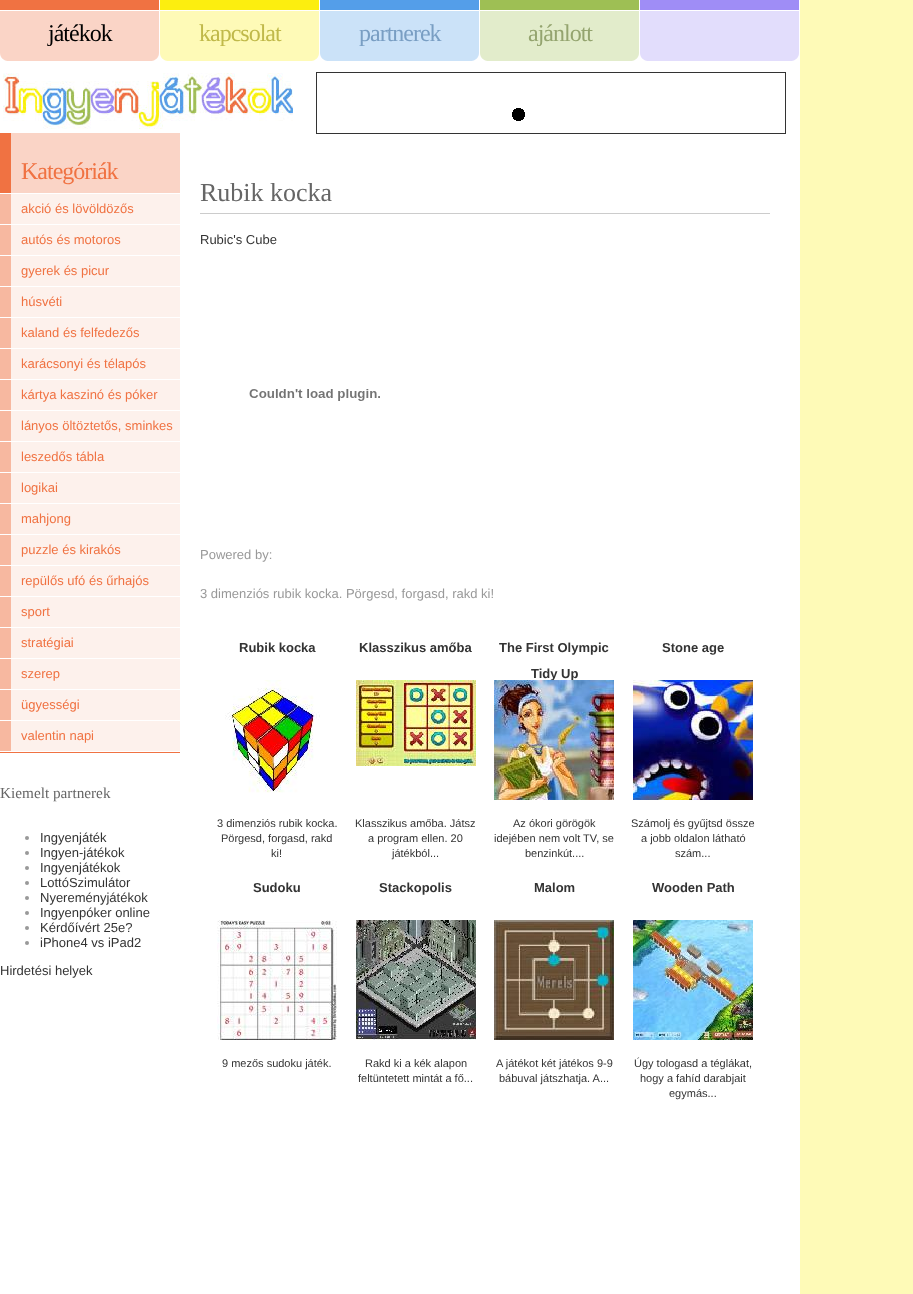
<!DOCTYPE html>
<meta charset="utf-8">
<style>body { margin: 0 } canvas { display: block }</style>
<canvas id="canvas" width="913" height="1294"></canvas>
<script type="module">
  const canvas = document.getElementById("canvas");
  const ctx = canvas.getContext("2d");
  ctx.miterLimit = 4;
  ctx.fontKerning = "normal";
  async function loadImage(src) {
    const img = new Image();
    img.src = src;
    await img.decode();
    return img;
  }

  ctx.fillStyle = "#fefab7";
  ctx.fillRect(0, 0, 913, 1294);
  ctx.fillStyle = "#ffffff";
  ctx.fillRect(0, 0, 800, 1294);
  ctx.drawImage(await loadImage("img1.png"), 0, 11, 159, 50);
  ctx.fillStyle = "#f07242";
  ctx.fillRect(0, 0, 159, 10);
  ctx.letterSpacing = "-1px";
  ctx.font = "24px Liberation Serif";
  ctx.fillStyle = "#000000";
  ctx.fillText("játékok", 48, 41);
  ctx.drawImage(await loadImage("img2.png"), 160, 11, 159, 50);
  ctx.fillStyle = "#fcee0f";
  ctx.fillRect(160, 0, 159, 10);
  ctx.fillStyle = "#c0b94a";
  ctx.fillText("kapcsolat", 199, 41);
  ctx.drawImage(await loadImage("img3.png"), 320, 11, 159, 50);
  ctx.fillStyle = "#549ee9";
  ctx.fillRect(320, 0, 159, 10);
  ctx.fillStyle = "#799ec3";
  ctx.fillText("partnerek", 359, 41);
  ctx.drawImage(await loadImage("img4.png"), 480, 11, 159, 50);
  ctx.fillStyle = "#9ebf54";
  ctx.fillRect(480, 0, 159, 10);
  ctx.fillStyle = "#94a46f";
  ctx.fillText("ajánlott", 528, 41);
  ctx.drawImage(await loadImage("img5.png"), 640, 11, 159, 50);
  ctx.fillStyle = "#9f8df6";
  ctx.fillRect(640, 0, 159, 10);
  ctx.drawImage(await loadImage("img6.png"), 3, 73, 290, 56);
  ctx.strokeStyle = "#333333";
  ctx.strokeRect(316.5, 72.5, 469, 61);
  ctx.drawImage(await loadImage("img7.png"), 512, 108, 13, 13);
  ctx.fillStyle = "#fad4c6";
  ctx.fillRect(11, 133, 169, 60);
  ctx.fillStyle = "#f07242";
  ctx.fillRect(0, 133, 11, 60);
  ctx.fillRect(0, 752, 180, 1);
  ctx.fillText("Kategóriák", 21, 179);
  ctx.fillStyle = "#fdf1ec";
  ctx.fillRect(11, 194, 169, 30);
  ctx.fillStyle = "#f7b8a0";
  ctx.fillRect(0, 194, 11, 30);
  ctx.letterSpacing = "0px";
  ctx.font = "13px Liberation Sans";
  ctx.fillStyle = "#f07242";
  ctx.fillText("akció és lövöldözős", 21, 213);
  ctx.fillStyle = "#fdf1ec";
  ctx.fillRect(11, 225, 169, 30);
  ctx.fillStyle = "#f7b8a0";
  ctx.fillRect(0, 225, 11, 30);
  ctx.fillStyle = "#f07242";
  ctx.fillText("autós és motoros", 21, 244);
  ctx.fillStyle = "#fdf1ec";
  ctx.fillRect(11, 256, 169, 30);
  ctx.fillStyle = "#f7b8a0";
  ctx.fillRect(0, 256, 11, 30);
  ctx.fillStyle = "#f07242";
  ctx.fillText("gyerek és picur", 21, 275);
  ctx.fillStyle = "#fdf1ec";
  ctx.fillRect(11, 287, 169, 30);
  ctx.fillStyle = "#f7b8a0";
  ctx.fillRect(0, 287, 11, 30);
  ctx.fillStyle = "#f07242";
  ctx.fillText("húsvéti", 21, 306);
  ctx.fillStyle = "#fdf1ec";
  ctx.fillRect(11, 318, 169, 30);
  ctx.fillStyle = "#f7b8a0";
  ctx.fillRect(0, 318, 11, 30);
  ctx.fillStyle = "#f07242";
  ctx.fillText("kaland és felfedezős", 21, 337);
  ctx.fillStyle = "#fdf1ec";
  ctx.fillRect(11, 349, 169, 30);
  ctx.fillStyle = "#f7b8a0";
  ctx.fillRect(0, 349, 11, 30);
  ctx.fillStyle = "#f07242";
  ctx.fillText("karácsonyi és télapós", 21, 368);
  ctx.fillStyle = "#fdf1ec";
  ctx.fillRect(11, 380, 169, 30);
  ctx.fillStyle = "#f7b8a0";
  ctx.fillRect(0, 380, 11, 30);
  ctx.fillStyle = "#f07242";
  ctx.fillText("kártya kaszinó és póker", 21, 399);
  ctx.fillStyle = "#fdf1ec";
  ctx.fillRect(11, 411, 169, 30);
  ctx.fillStyle = "#f7b8a0";
  ctx.fillRect(0, 411, 11, 30);
  ctx.fillStyle = "#f07242";
  ctx.fillText("lányos öltöztetős, sminkes", 21, 430);
  ctx.fillStyle = "#fdf1ec";
  ctx.fillRect(11, 442, 169, 30);
  ctx.fillStyle = "#f7b8a0";
  ctx.fillRect(0, 442, 11, 30);
  ctx.fillStyle = "#f07242";
  ctx.fillText("leszedős tábla", 21, 461);
  ctx.fillStyle = "#fdf1ec";
  ctx.fillRect(11, 473, 169, 30);
  ctx.fillStyle = "#f7b8a0";
  ctx.fillRect(0, 473, 11, 30);
  ctx.fillStyle = "#f07242";
  ctx.fillText("logikai", 21, 492);
  ctx.fillStyle = "#fdf1ec";
  ctx.fillRect(11, 504, 169, 30);
  ctx.fillStyle = "#f7b8a0";
  ctx.fillRect(0, 504, 11, 30);
  ctx.fillStyle = "#f07242";
  ctx.fillText("mahjong", 21, 523);
  ctx.fillStyle = "#fdf1ec";
  ctx.fillRect(11, 535, 169, 30);
  ctx.fillStyle = "#f7b8a0";
  ctx.fillRect(0, 535, 11, 30);
  ctx.fillStyle = "#f07242";
  ctx.fillText("puzzle és kirakós", 21, 554);
  ctx.fillStyle = "#fdf1ec";
  ctx.fillRect(11, 566, 169, 30);
  ctx.fillStyle = "#f7b8a0";
  ctx.fillRect(0, 566, 11, 30);
  ctx.fillStyle = "#f07242";
  ctx.fillText("repülős ufó és űrhajós", 21, 585);
  ctx.fillStyle = "#fdf1ec";
  ctx.fillRect(11, 597, 169, 30);
  ctx.fillStyle = "#f7b8a0";
  ctx.fillRect(0, 597, 11, 30);
  ctx.fillStyle = "#f07242";
  ctx.fillText("sport", 21, 616);
  ctx.fillStyle = "#fdf1ec";
  ctx.fillRect(11, 628, 169, 30);
  ctx.fillStyle = "#f7b8a0";
  ctx.fillRect(0, 628, 11, 30);
  ctx.fillStyle = "#f07242";
  ctx.fillText("stratégiai", 21, 647);
  ctx.fillStyle = "#fdf1ec";
  ctx.fillRect(11, 659, 169, 30);
  ctx.fillStyle = "#f7b8a0";
  ctx.fillRect(0, 659, 11, 30);
  ctx.fillStyle = "#f07242";
  ctx.fillText("szerep", 21, 678);
  ctx.fillStyle = "#fdf1ec";
  ctx.fillRect(11, 690, 169, 30);
  ctx.fillStyle = "#f7b8a0";
  ctx.fillRect(0, 690, 11, 30);
  ctx.fillStyle = "#f07242";
  ctx.fillText("ügyességi", 21, 709);
  ctx.fillStyle = "#fdf1ec";
  ctx.fillRect(11, 721, 169, 30);
  ctx.fillStyle = "#f7b8a0";
  ctx.fillRect(0, 721, 11, 30);
  ctx.fillStyle = "#f07242";
  ctx.fillText("valentin napi", 21, 740);
  ctx.font = "15.25px Liberation Serif";
  ctx.fillStyle = "#666666";
  ctx.fillText("Kiemelt partnerek", 0, 798);
  ctx.fillStyle = "#999999";
  ctx.beginPath();
  ctx.arc(27, 838, 2, 0, Math.PI * 2);
  ctx.fill();
  ctx.font = "13px Liberation Sans";
  ctx.fillStyle = "#333333";
  ctx.fillText("Ingyenjáték", 40, 842);
  ctx.fillStyle = "#999999";
  ctx.beginPath();
  ctx.arc(27, 853, 2, 0, Math.PI * 2);
  ctx.fill();
  ctx.fillStyle = "#333333";
  ctx.fillText("Ingyen-játékok", 40, 857);
  ctx.fillStyle = "#999999";
  ctx.beginPath();
  ctx.arc(27, 868, 2, 0, Math.PI * 2);
  ctx.fill();
  ctx.fillStyle = "#333333";
  ctx.fillText("Ingyenjátékok", 40, 872);
  ctx.fillStyle = "#999999";
  ctx.beginPath();
  ctx.arc(27, 883, 2, 0, Math.PI * 2);
  ctx.fill();
  ctx.fillStyle = "#333333";
  ctx.fillText("LottóSzimulátor", 40, 887);
  ctx.fillStyle = "#999999";
  ctx.beginPath();
  ctx.arc(27, 898, 2, 0, Math.PI * 2);
  ctx.fill();
  ctx.fillStyle = "#333333";
  ctx.fillText("Nyereményjátékok", 40, 902);
  ctx.fillStyle = "#999999";
  ctx.beginPath();
  ctx.arc(27, 913, 2, 0, Math.PI * 2);
  ctx.fill();
  ctx.fillStyle = "#333333";
  ctx.fillText("Ingyenpóker online", 40, 917);
  ctx.fillStyle = "#999999";
  ctx.beginPath();
  ctx.arc(27, 928, 2, 0, Math.PI * 2);
  ctx.fill();
  ctx.fillStyle = "#333333";
  ctx.fillText("Kérdőívért 25e?", 40, 932);
  ctx.fillStyle = "#999999";
  ctx.beginPath();
  ctx.arc(27, 943, 2, 0, Math.PI * 2);
  ctx.fill();
  ctx.fillStyle = "#333333";
  ctx.fillText("iPhone4 vs iPad2", 40, 947);
  ctx.fillText("Hirdetési helyek", 0, 975);
  ctx.fillStyle = "#cccccc";
  ctx.fillRect(200, 213, 570, 1);
  ctx.font = "26px Liberation Serif";
  ctx.fillStyle = "#666666";
  ctx.fillText("Rubik kocka", 200, 201);
  ctx.font = "13px Liberation Sans";
  ctx.fillStyle = "#333333";
  ctx.fillText("Rubic's Cube", 200, 244);
  ctx.drawImage(await loadImage("img8.png"), 249, 389, 131, 12);
  ctx.fillStyle = "#999999";
  ctx.fillText("Powered by:", 200, 559);
  ctx.fillText("3 dimenziós rubik kocka. Pörgesd, forgasd, rakd ki!", 200, 598);
  ctx.font = "bold 13px Liberation Sans";
  ctx.fillStyle = "#333333";
  ctx.fillText("Rubik kocka", 239, 652);
  ctx.drawImage(await loadImage("img9.png"), 225, 680, 95, 113);
  ctx.font = "11px Liberation Sans";
  ctx.fillText("3 dimenziós rubik kocka.", 217, 827);
  ctx.fillText("Pörgesd, forgasd, rakd", 221, 842);
  ctx.fillText("ki!", 271, 857);
  ctx.font = "bold 13px Liberation Sans";
  ctx.fillText("Klasszikus amőba", 359, 652);
  ctx.drawImage(await loadImage("img10.png"), 356, 680, 120, 86);
  ctx.font = "11px Liberation Sans";
  ctx.fillText("Klasszikus amőba. Játsz", 355, 827);
  ctx.fillText("a program ellen. 20", 368, 842);
  ctx.fillText("játékból...", 392, 857);
  ctx.font = "bold 13px Liberation Sans";
  ctx.fillText("The First Olympic", 499, 652);
  ctx.fillText("Tidy Up", 531, 678);
  ctx.drawImage(await loadImage("img11.png"), 494, 680, 120, 120);
  ctx.font = "11px Liberation Sans";
  ctx.fillText("Az ókori görögök", 513, 827);
  ctx.fillText("idejében nem volt TV, se", 494, 842);
  ctx.fillText("benzinkút....", 525, 857);
  ctx.font = "bold 13px Liberation Sans";
  ctx.fillText("Stone age", 662, 652);
  ctx.drawImage(await loadImage("img12.png"), 633, 680, 120, 120);
  ctx.font = "11px Liberation Sans";
  ctx.fillText("Számolj és gyűjtsd össze", 631, 827);
  ctx.fillText("a jobb oldalon látható", 641, 842);
  ctx.fillText("szám...", 675, 857);
  ctx.font = "bold 13px Liberation Sans";
  ctx.fillText("Sudoku", 253, 892);
  ctx.drawImage(await loadImage("img13.png"), 217, 920, 120, 120);
  ctx.font = "11px Liberation Sans";
  ctx.fillText("9 mezős sudoku játék.", 222, 1067);
  ctx.font = "bold 13px Liberation Sans";
  ctx.fillText("Stackopolis", 379, 892);
  ctx.drawImage(await loadImage("img14.png"), 356, 920, 120, 120);
  ctx.font = "11px Liberation Sans";
  ctx.fillText("Rakd ki a kék alapon", 365, 1067);
  ctx.fillText("feltüntetett mintát a fő...", 358, 1082);
  ctx.font = "bold 13px Liberation Sans";
  ctx.fillText("Malom", 534, 892);
  ctx.drawImage(await loadImage("img15.png"), 494, 920, 120, 120);
  ctx.font = "11px Liberation Sans";
  ctx.fillText("A játékot két játékos 9-9", 496, 1067);
  ctx.fillText("bábuval játszhatja. A...", 499, 1082);
  ctx.font = "bold 13px Liberation Sans";
  ctx.fillText("Wooden Path", 652, 892);
  ctx.drawImage(await loadImage("img16.png"), 633, 920, 120, 120);
  ctx.font = "11px Liberation Sans";
  ctx.fillText("Úgy tologasd a téglákat,", 634, 1067);
  ctx.fillText("hogy a fahíd darabjait", 640, 1082);
  ctx.fillText("egymás...", 669, 1097);
</script>
